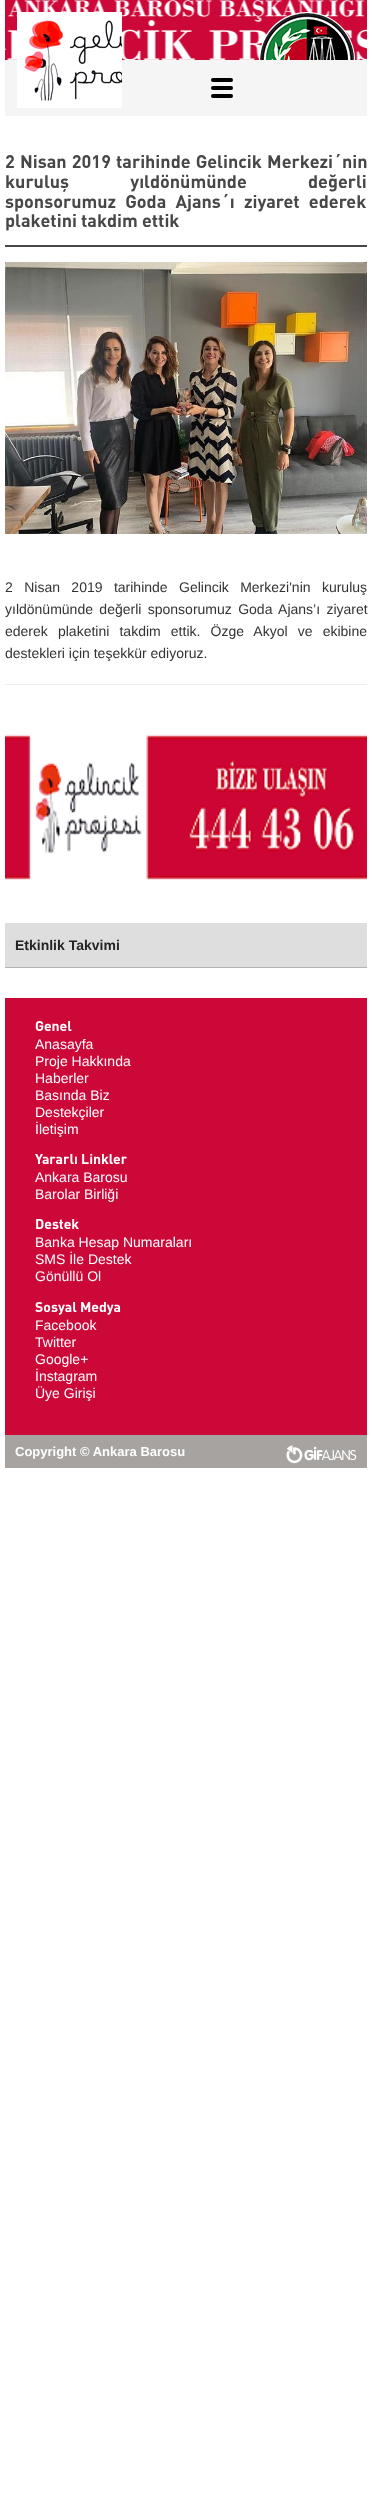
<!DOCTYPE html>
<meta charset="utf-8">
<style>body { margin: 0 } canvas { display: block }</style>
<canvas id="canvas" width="372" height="2518"></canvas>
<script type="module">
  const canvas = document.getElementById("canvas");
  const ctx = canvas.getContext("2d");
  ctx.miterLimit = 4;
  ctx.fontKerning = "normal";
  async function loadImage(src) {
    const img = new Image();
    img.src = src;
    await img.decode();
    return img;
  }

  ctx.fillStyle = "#ffffff";
  ctx.fillRect(0, 0, 372, 2518);
  ctx.fillStyle = "#cc0839";
  ctx.fillRect(5, 0, 362, 60);
  ctx.drawImage(await loadImage("img1.png"), 5, 0, 362, 60);
  ctx.fillStyle = "#f5f5f5";
  ctx.fillRect(5, 60, 362, 56);
  ctx.drawImage(await loadImage("img2.png"), 17, 12, 105, 96);
  ctx.drawImage(await loadImage("img3.png"), 259, 12, 96, 48);
  ctx.fillStyle = "#000000";
  ctx.beginPath();
  ctx.roundRect(211, 78, 22, 4, 2);
  ctx.fill();
  ctx.beginPath();
  ctx.roundRect(211, 86, 22, 4, 2);
  ctx.fill();
  ctx.beginPath();
  ctx.roundRect(211, 94, 22, 4, 2);
  ctx.fill();
  ctx.fillStyle = "#474747";
  ctx.fillRect(5, 245, 362, 2);
  ctx.wordSpacing = "1px";
  ctx.font = "bold 18px DIN";
  ctx.fillText("2 Nisan 2019 tarihinde Gelincik Merkezi´nin", 5, 168);
  ctx.wordSpacing = "57px";
  ctx.fillText("kuruluş yıldönümünde değerli", 5, 188);
  ctx.wordSpacing = "5px";
  ctx.fillText("sponsorumuz Goda Ajans´ı ziyaret ederek", 5, 208);
  ctx.wordSpacing = "0px";
  ctx.fillText("plaketini takdim ettik", 5, 227);
  ctx.drawImage(await loadImage("img4.png"), 5, 262, 362, 272);
  ctx.wordSpacing = "7.5px";
  ctx.font = "14px Liberation Sans";
  ctx.fillStyle = "#333333";
  ctx.fillText("2 Nisan 2019 tarihinde Gelincik Merkezi'nin kuruluş", 5, 592);
  ctx.wordSpacing = "2.5px";
  ctx.fillText("yıldönümünde değerli sponsorumuz Goda Ajans’ı ziyaret", 5, 614);
  ctx.wordSpacing = "6.25px";
  ctx.fillText("ederek plaketini takdim ettik. Özge Akyol ve ekibine", 5, 636);
  ctx.wordSpacing = "0px";
  ctx.fillText("destekleri için teşekkür ediyoruz.", 5, 658);
  ctx.fillStyle = "#eeeeee";
  ctx.fillRect(5, 684, 362, 1);
  ctx.drawImage(await loadImage("img5.png"), 5, 734, 362, 146);
  ctx.fillStyle = "#dedede";
  ctx.fillRect(5, 923, 362, 44);
  ctx.fillStyle = "#b3b3b3";
  ctx.fillRect(5, 967, 362, 1);
  ctx.font = "bold 14px Liberation Sans";
  ctx.fillStyle = "#242424";
  ctx.fillText("Etkinlik Takvimi", 15, 950);
  ctx.fillStyle = "#cc0839";
  ctx.fillRect(5, 998, 362, 437);
  ctx.font = "bold 14px DIN";
  ctx.fillStyle = "#ffffff";
  ctx.fillText("Genel", 35, 1031);
  ctx.font = "14px Liberation Sans";
  ctx.fillText("Anasayfa", 35, 1049);
  ctx.fillText("Proje Hakkında", 35, 1066);
  ctx.fillText("Haberler", 35, 1083);
  ctx.fillText("Basında Biz", 35, 1100);
  ctx.fillText("Destekçiler", 35, 1117);
  ctx.fillText("İletişim", 35, 1134);
  ctx.font = "bold 14px DIN";
  ctx.fillText("Yararlı Linkler", 35, 1164);
  ctx.font = "14px Liberation Sans";
  ctx.fillText("Ankara Barosu", 35, 1182);
  ctx.fillText("Barolar Birliği", 35, 1199);
  ctx.font = "bold 14px DIN";
  ctx.fillText("Destek", 35, 1229);
  ctx.font = "14px Liberation Sans";
  ctx.fillText("Banka Hesap Numaraları", 35, 1247);
  ctx.fillText("SMS İle Destek", 35, 1264);
  ctx.fillText("Gönüllü Ol", 35, 1281);
  ctx.font = "bold 14px DIN";
  ctx.fillText("Sosyal Medya", 35, 1312);
  ctx.font = "14px Liberation Sans";
  ctx.fillText("Facebook", 35, 1330);
  ctx.fillText("Twitter", 35, 1347);
  ctx.fillText("Google+", 35, 1364);
  ctx.fillText("İnstagram", 35, 1381);
  ctx.fillText("Üye Girişi", 35, 1398);
  ctx.fillStyle = "#a7a3a0";
  ctx.fillRect(5, 1435, 362, 33);
  ctx.font = "bold 13px Liberation Sans";
  ctx.fillStyle = "#ffffff";
  ctx.fillText("Copyright © Ankara Barosu", 15, 1456);
  ctx.drawImage(await loadImage("img6.png"), 286, 1445, 71, 19);
</script>
